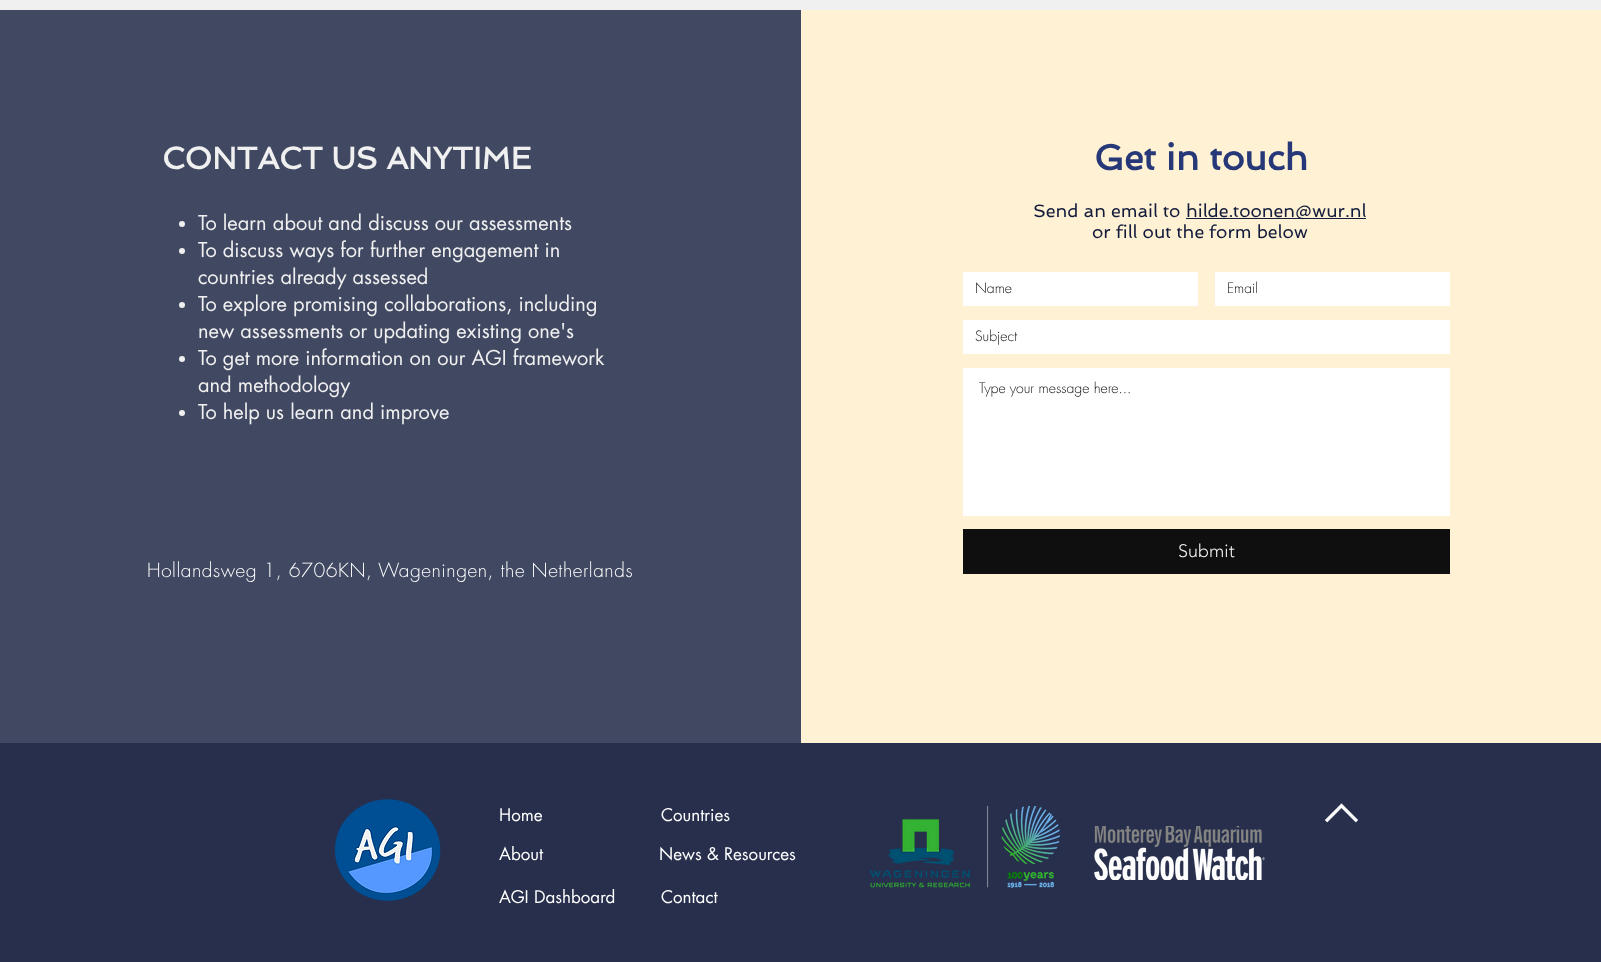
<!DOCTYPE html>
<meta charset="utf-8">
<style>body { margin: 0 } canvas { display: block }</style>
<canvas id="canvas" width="1601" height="962"></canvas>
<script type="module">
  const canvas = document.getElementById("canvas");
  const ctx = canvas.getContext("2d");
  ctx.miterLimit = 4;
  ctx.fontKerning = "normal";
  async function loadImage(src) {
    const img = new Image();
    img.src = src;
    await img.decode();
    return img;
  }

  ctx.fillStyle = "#f0f0f0";
  ctx.fillRect(0, 0, 1601, 962);
  ctx.fillStyle = "#414962";
  ctx.fillRect(0, 10, 801, 733);
  ctx.font = "bold 31px Spinnaker";
  ctx.fillStyle = "#f0f0f0";
  ctx.fillText("CONTACT US ANYTIME", 162, 169);
  ctx.beginPath();
  ctx.arc(182, 224, 3, 0, Math.PI * 2);
  ctx.fill();
  ctx.font = "20px futura";
  ctx.fillText("To learn about and discuss our assessments", 198, 230);
  ctx.beginPath();
  ctx.arc(182, 251, 3, 0, Math.PI * 2);
  ctx.fill();
  ctx.fillText("To discuss ways for further engagement in", 198, 257);
  ctx.fillText("countries already assessed", 198, 284);
  ctx.beginPath();
  ctx.arc(182, 305, 3, 0, Math.PI * 2);
  ctx.fill();
  ctx.fillText("To explore promising collaborations, including", 198, 311);
  ctx.fillText("new assessments or updating existing one's", 198, 338);
  ctx.beginPath();
  ctx.arc(182, 359, 3, 0, Math.PI * 2);
  ctx.fill();
  ctx.fillText("To get more information on our AGI framework", 198, 365);
  ctx.fillText("and methodology", 198, 392);
  ctx.beginPath();
  ctx.arc(182, 413, 3, 0, Math.PI * 2);
  ctx.fill();
  ctx.fillText("To help us learn and improve", 198, 419);
  ctx.letterSpacing = "0.55px";
  ctx.font = "300 19px futura";
  ctx.fillStyle = "#ffffff";
  ctx.fillText("Hollandsweg 1, 6706KN, Wageningen, the Netherlands", 147, 577);
  ctx.fillStyle = "#fff2d4";
  ctx.fillRect(801, 10, 800, 733);
  ctx.letterSpacing = "0px";
  ctx.font = "bold 36px Spinnaker";
  ctx.fillStyle = "#273878";
  ctx.fillText("Get in touch", 1094, 170);
  ctx.font = "18px Spinnaker";
  ctx.fillStyle = "#131c3c";
  ctx.fillText("Send an email to", 1033, 217);
  ctx.fillRect(1186, 218, 180, 1);
  ctx.fillText("hilde.toonen@wur.nl", 1186, 217);
  ctx.fillText("or fill out the form below", 1092, 238);
  ctx.fillStyle = "#ffffff";
  ctx.fillRect(963, 272, 235, 34);
  ctx.font = "300 14px futura";
  ctx.fillStyle = "#0f0f0f";
  ctx.fillText("Name", 975, 293);
  ctx.fillStyle = "#ffffff";
  ctx.fillRect(1215, 272, 235, 34);
  ctx.fillStyle = "#0f0f0f";
  ctx.fillText("Email", 1227, 293);
  ctx.fillStyle = "#ffffff";
  ctx.fillRect(963, 320, 487, 34);
  ctx.fillStyle = "#0f0f0f";
  ctx.fillText("Subject", 975, 341);
  ctx.fillStyle = "#ffffff";
  ctx.fillRect(963, 368, 487, 148);
  ctx.fillStyle = "#0f0f0f";
  ctx.fillText("Type your message here...", 979, 393);
  ctx.fillRect(963, 529, 487, 45);
  ctx.font = "300 18px 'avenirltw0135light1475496'";
  ctx.fillStyle = "#f0f0f0";
  ctx.fillText("Submit", 1178, 557);
  ctx.fillStyle = "#272f4c";
  ctx.fillRect(0, 743, 1601, 219);
  ctx.drawImage(await loadImage("img1.png"), 334, 799, 107, 102);
  ctx.font = "17px futura";
  ctx.fillStyle = "#ffffff";
  ctx.fillText("Home", 499, 821);
  ctx.fillText("Countries", 661, 821);
  ctx.drawImage(await loadImage("img2.png"), 870, 806, 190, 82);
  ctx.drawImage(await loadImage("img3.png"), 1325, 803, 33, 20);
  ctx.fillText("About", 499, 860);
  ctx.fillText("News & Resources", 659, 860);
  ctx.drawImage(await loadImage("img4.png"), 1094, 826, 171, 54);
  ctx.fillText("AGI Dashboard", 499, 903);
  ctx.fillText("Contact", 661, 903);
</script>
